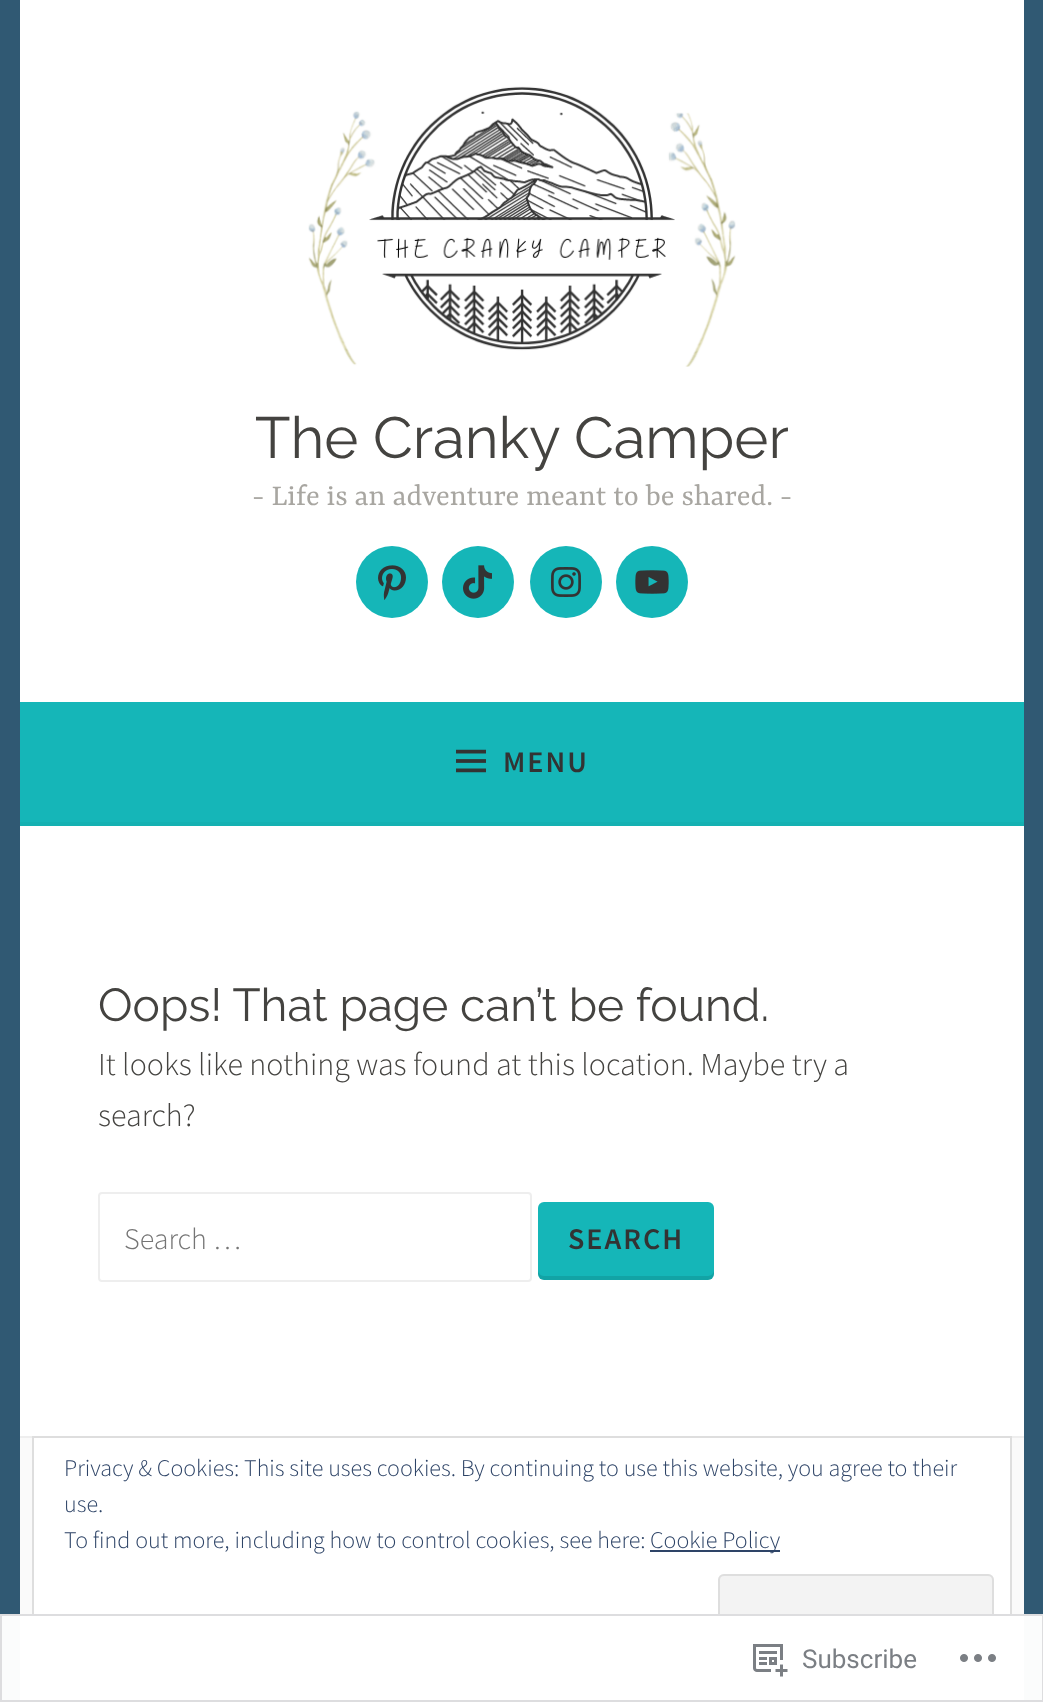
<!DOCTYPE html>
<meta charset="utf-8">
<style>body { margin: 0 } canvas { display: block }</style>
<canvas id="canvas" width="1043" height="1702"></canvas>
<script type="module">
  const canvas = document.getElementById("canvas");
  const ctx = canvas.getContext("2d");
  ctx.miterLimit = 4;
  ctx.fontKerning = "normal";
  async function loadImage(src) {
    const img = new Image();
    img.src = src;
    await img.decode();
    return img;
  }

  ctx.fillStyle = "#305973";
  ctx.fillRect(0, 0, 1043, 1702);
  ctx.fillStyle = "#ffffff";
  ctx.fillRect(20, 0, 1004, 702);
  ctx.drawImage(await loadImage("img1.png"), 308, 86, 428, 281);
  ctx.font = "100 58px Raleway";
  ctx.fillStyle = "#444340";
  ctx.fillText("The Cranky Camper", 255, 458);
  ctx.font = "32px Yrsa";
  ctx.fillStyle = "#a8a6a1";
  ctx.fillText("- Life is an adventure meant to be shared. -", 252, 505);
  ctx.fillStyle = "#15b6b8";
  ctx.beginPath();
  ctx.arc(392, 582, 36, 0, Math.PI * 2);
  ctx.fill();
  ctx.drawImage(await loadImage("img2.png"), 378, 565, 28, 35);
  ctx.beginPath();
  ctx.arc(478, 582, 36, 0, Math.PI * 2);
  ctx.fill();
  ctx.drawImage(await loadImage("img3.png"), 463, 565, 29, 34);
  ctx.beginPath();
  ctx.arc(566, 582, 36, 0, Math.PI * 2);
  ctx.fill();
  ctx.drawImage(await loadImage("img4.png"), 551, 567, 30, 30);
  ctx.beginPath();
  ctx.arc(652, 582, 36, 0, Math.PI * 2);
  ctx.fill();
  ctx.drawImage(await loadImage("img5.png"), 635, 570, 34, 24);
  ctx.fillRect(20, 702, 1004, 120);
  ctx.fillStyle = "#14b1b2";
  ctx.fillRect(20, 822, 1004, 4);
  ctx.drawImage(await loadImage("img6.png"), 456, 749, 30, 24);
  ctx.letterSpacing = "2px";
  ctx.font = "600 30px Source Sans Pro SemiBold";
  ctx.fillStyle = "#333333";
  ctx.fillText("MENU", 503, 772);
  ctx.fillStyle = "#ffffff";
  ctx.fillRect(20, 826, 1004, 610);
  ctx.letterSpacing = "0px";
  ctx.font = "100 46px Raleway";
  ctx.fillStyle = "#444340";
  ctx.fillText("Oops! That page can’t be found.", 98, 1021);
  ctx.font = "300 32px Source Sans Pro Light";
  ctx.fillText("It looks like nothing was found at this location. Maybe try a", 98, 1075);
  ctx.fillText("search?", 98, 1126);
  ctx.beginPath();
  ctx.roundRect(99, 1193, 432, 88, 3);
  ctx.strokeStyle = "#eeeeee";
  ctx.lineWidth = 2;
  ctx.stroke();
  ctx.font = "300 30px Source Sans Pro Light";
  ctx.fillStyle = "#757575";
  ctx.fillText("Search …", 124, 1249);
  ctx.fillStyle = "#15b6b8";
  ctx.beginPath();
  ctx.roundRect(538, 1202, 176, 78, 6);
  ctx.fill();
  ctx.fillStyle = "rgba(0, 0, 0, 0.1)";
  ctx.beginPath();
  ctx.moveTo(538, 1270);
  ctx.lineTo(538, 1274);
  ctx.bezierCurveTo(538, 1277, 541, 1280, 544, 1280);
  ctx.lineTo(708, 1280);
  ctx.bezierCurveTo(711, 1280, 714, 1277, 714, 1274);
  ctx.lineTo(714, 1270);
  ctx.bezierCurveTo(714, 1273, 711, 1276, 708, 1276);
  ctx.lineTo(544, 1276);
  ctx.bezierCurveTo(541, 1276, 538, 1273, 538, 1270);
  ctx.closePath();
  ctx.fill();
  ctx.letterSpacing = "2px";
  ctx.font = "600 30px Source Sans Pro SemiBold";
  ctx.fillStyle = "#333333";
  ctx.fillText("SEARCH", 568, 1249);
  ctx.fillStyle = "#fafafa";
  ctx.fillRect(20, 1438, 1004, 264);
  ctx.fillStyle = "#eeeeee";
  ctx.fillRect(20, 1436, 1004, 2);
  ctx.fillStyle = "#ffffff";
  ctx.fillRect(62, 1670, 920, 32);
  ctx.strokeRect(61, 1629, 922, 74);
  ctx.beginPath();
  ctx.rect(33, 1437, 978, 232);
  ctx.fill();
  ctx.strokeStyle = "#dedede";
  ctx.stroke();
  ctx.letterSpacing = "0px";
  ctx.font = "300 24px Source Sans Pro Light";
  ctx.fillStyle = "#2e4467";
  ctx.fillText("Privacy & Cookies: This site uses cookies. By continuing to use this website, you agree to their", 64, 1476);
  ctx.fillText("use.", 64, 1512);
  ctx.fillText("To find out more, including how to control cookies, see here:", 64, 1548);
  ctx.fillRect(650, 1550, 130, 2);
  ctx.fillText("Cookie Policy", 650, 1548);
  ctx.fillStyle = "#f3f3f3";
  ctx.beginPath();
  ctx.roundRect(718, 1574, 276, 78, 6);
  ctx.fill();
  ctx.fillStyle = "#dbdbdb";
  ctx.beginPath();
  ctx.moveTo(720, 1642);
  ctx.lineTo(720, 1646);
  ctx.bezierCurveTo(720, 1648, 722, 1650, 724, 1650);
  ctx.lineTo(988, 1650);
  ctx.bezierCurveTo(990, 1650, 992, 1648, 992, 1646);
  ctx.lineTo(992, 1642);
  ctx.bezierCurveTo(992, 1644, 990, 1646, 988, 1646);
  ctx.lineTo(724, 1646);
  ctx.bezierCurveTo(722, 1646, 720, 1644, 720, 1642);
  ctx.closePath();
  ctx.fill();
  ctx.beginPath();
  ctx.roundRect(719, 1575, 274, 76, 5);
  ctx.stroke();
  ctx.fillStyle = "rgba(255, 255, 255, 0.98)";
  ctx.fillRect(0, 1614, 1043, 88);
  ctx.strokeStyle = "rgba(220, 220, 222, 0.98)";
  ctx.strokeRect(1, 1615, 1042, 86);
  ctx.drawImage(await loadImage("img7.png"), 753, 1644, 35, 33);
  ctx.font = "26px Roboto";
  ctx.fillStyle = "#7b7f84";
  ctx.fillText("Subscribe", 802, 1668);
  ctx.drawImage(await loadImage("img8.png"), 960, 1654, 36, 8);
</script>
